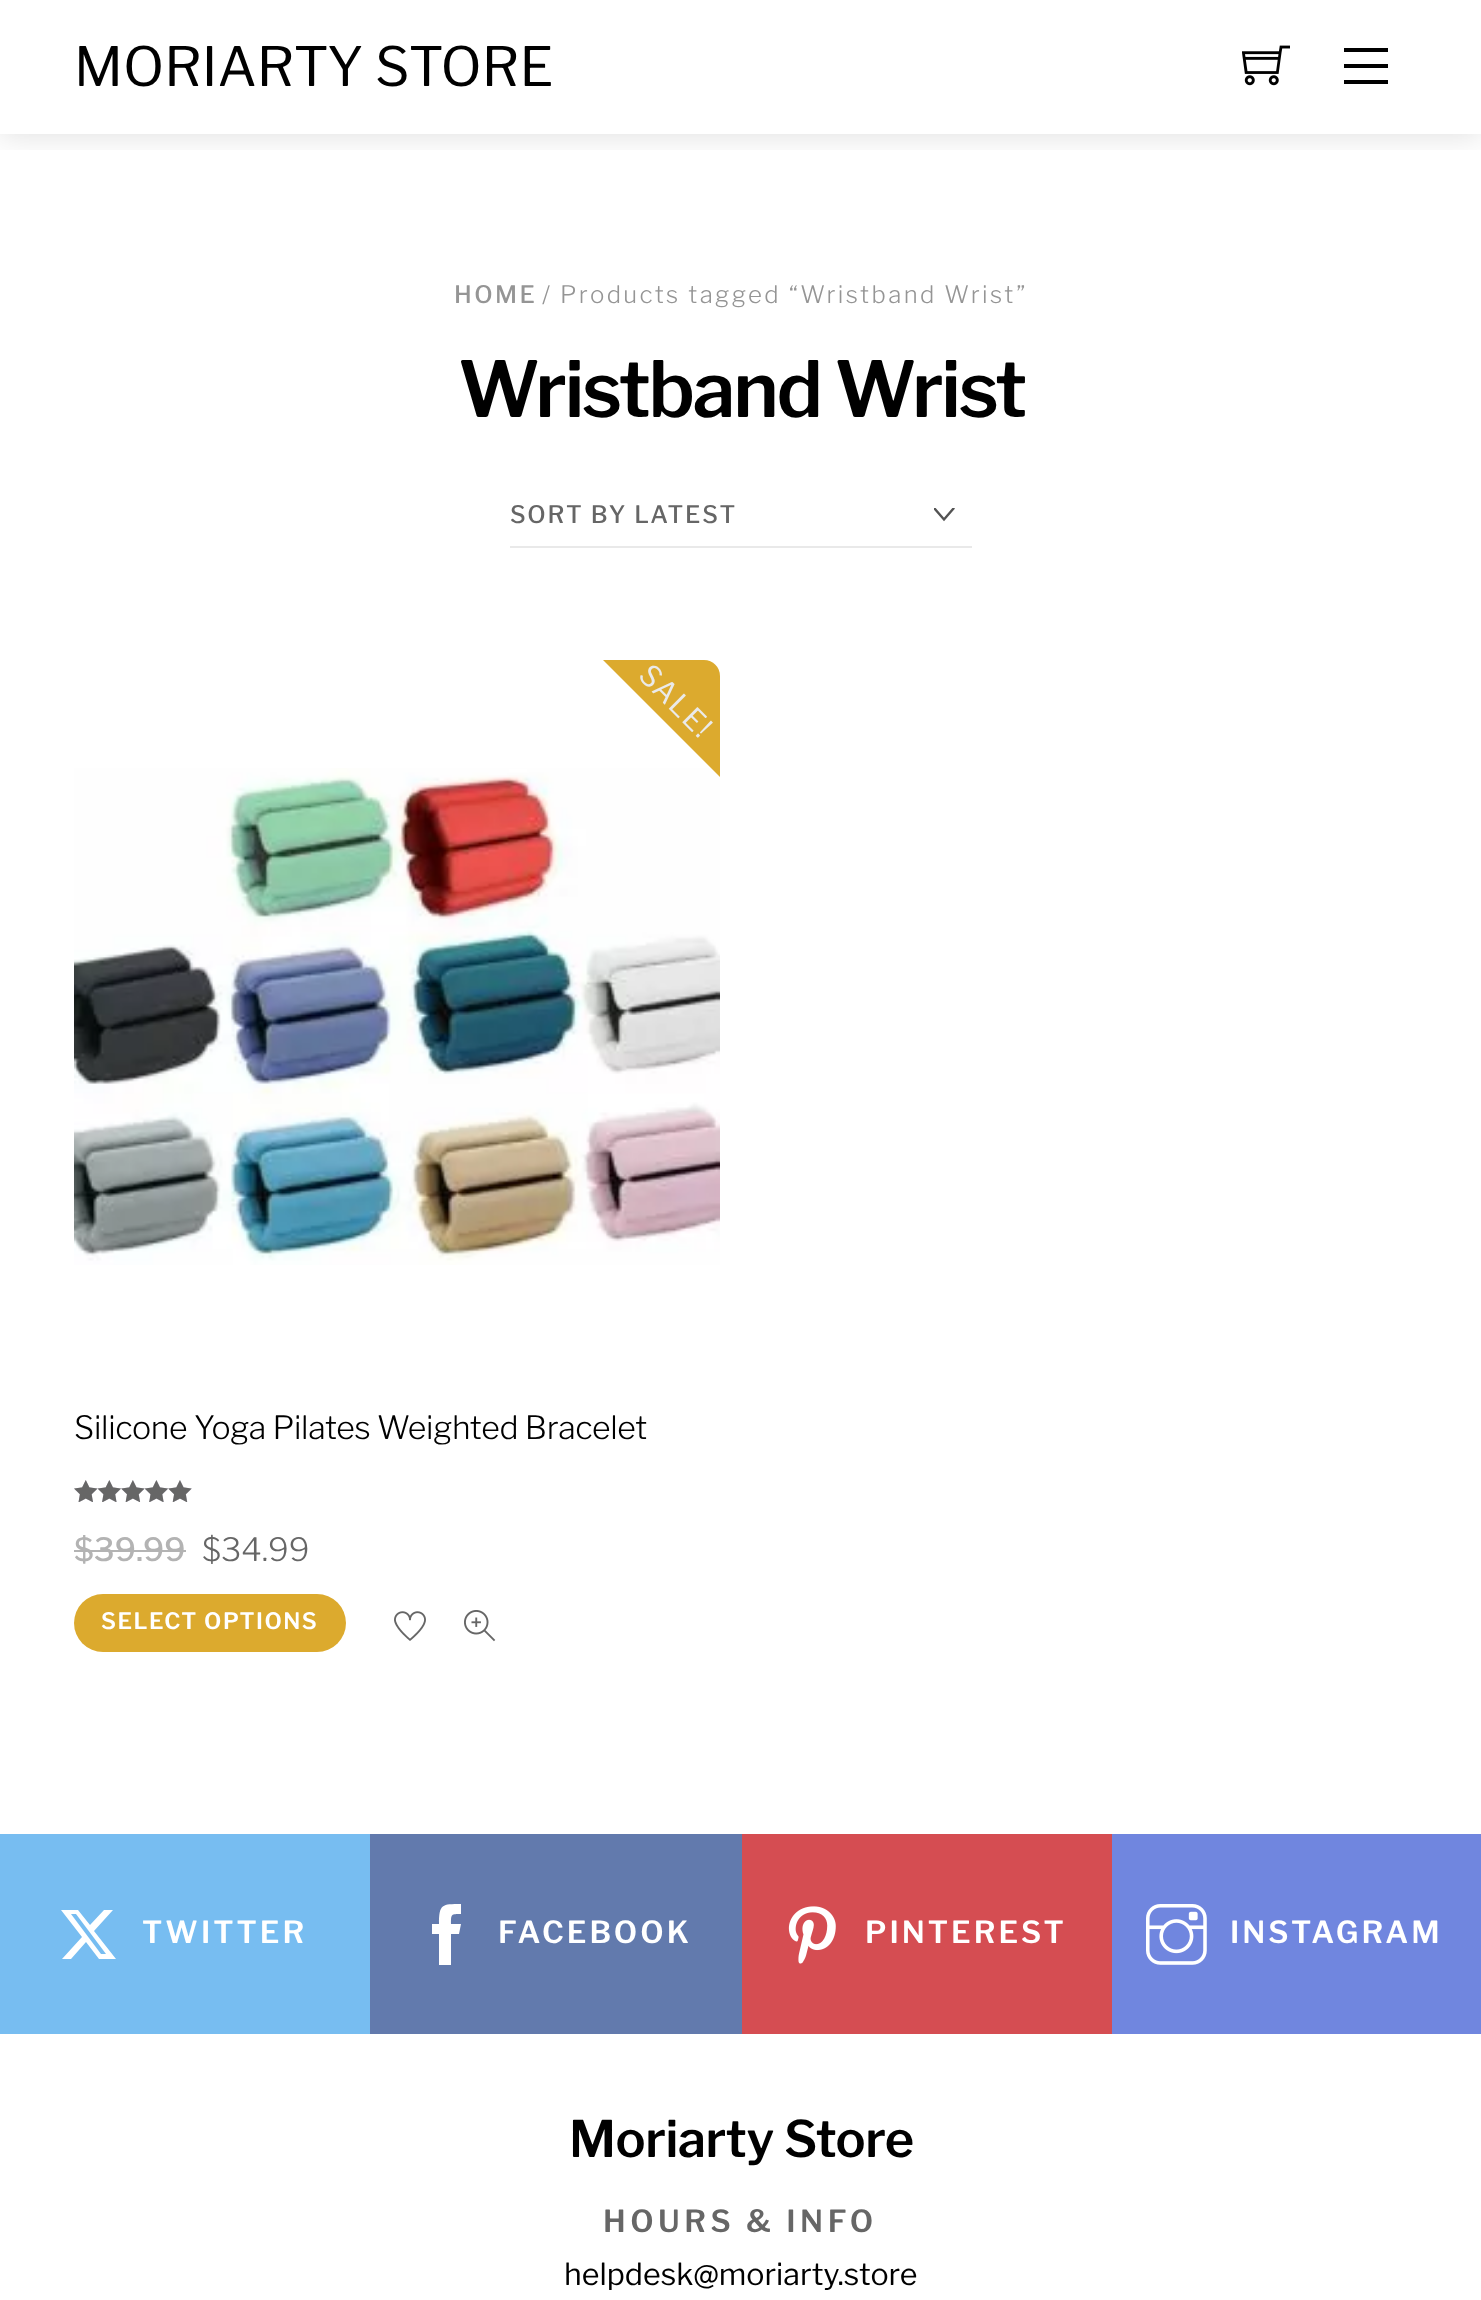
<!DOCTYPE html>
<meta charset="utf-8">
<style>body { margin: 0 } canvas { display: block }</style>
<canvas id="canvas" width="1481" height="2300"></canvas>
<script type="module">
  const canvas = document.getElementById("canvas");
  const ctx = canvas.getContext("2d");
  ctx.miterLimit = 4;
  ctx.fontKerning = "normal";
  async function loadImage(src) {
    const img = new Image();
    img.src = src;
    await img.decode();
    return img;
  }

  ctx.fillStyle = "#ffffff";
  ctx.fillRect(0, 0, 1481, 2300);
  ctx.save();
  ctx.beginPath();
  ctx.rect(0, 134, 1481, 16);
  ctx.clip();
  ctx.fillStyle = "rgba(0, 0, 0, 0.12)";
  ctx.filter = "blur(15px)";
  ctx.beginPath();
  ctx.rect(0, 2, 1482, 134);
  ctx.fill();
  ctx.filter = "none";
  ctx.restore();
  ctx.font = "54px Libre Franklin";
  ctx.fillStyle = "#000000";
  ctx.fillText("MORIARTY STORE", 74, 86);
  ctx.drawImage(await loadImage("img1.png"), 1242, 45, 48, 41);
  ctx.fillRect(1344, 48, 44, 4);
  ctx.fillRect(1344, 80, 44, 4);
  ctx.fillRect(1344, 64, 44, 4);
  ctx.letterSpacing = "2.4px";
  ctx.font = "500 24px Libre Franklin";
  ctx.fillStyle = "#959595";
  ctx.fillText("HOME", 454, 303);
  ctx.font = "300 24px Libre Franklin";
  ctx.fillText("/ Products tagged “Wristband Wrist”", 542, 303);
  ctx.letterSpacing = "-2.25px";
  ctx.font = "600 76.75px Libre Franklin";
  ctx.fillStyle = "#000000";
  ctx.fillText("Wristband Wrist", 458, 417);
  ctx.save();
  ctx.beginPath();
  ctx.rect(934, 508, 22, 20);
  ctx.clip();
  ctx.beginPath();
  ctx.moveTo(934.5, 508.5);
  ctx.lineTo(944, 519.5);
  ctx.lineTo(953.5, 508.5);
  ctx.strokeStyle = "#535353";
  ctx.lineWidth = 2.4;
  ctx.lineCap = "round";
  ctx.stroke();
  ctx.restore();
  ctx.fillStyle = "#e9e9e9";
  ctx.fillRect(510, 546, 462, 2);
  ctx.letterSpacing = "1.9px";
  ctx.font = "500 24px Libre Franklin";
  ctx.fillStyle = "#666666";
  ctx.fillText("SORT BY LATEST", 510, 523);
  ctx.drawImage(await loadImage("img2.png"), 74, 768, 646, 497);
  ctx.fillStyle = "#dcaa2e";
  ctx.beginPath();
  ctx.moveTo(720, 777);
  ctx.lineTo(603, 660);
  ctx.lineTo(704, 660);
  ctx.bezierCurveTo(713, 660, 720, 667, 720, 676);
  ctx.closePath();
  ctx.fill();
  ctx.letterSpacing = "1.5px";
  ctx.font = "29px Libre Franklin";
  ctx.fillStyle = "#eaeaea";
  ctx.save();
  ctx.translate(637, 677);
  ctx.rotate(45 * Math.PI / 180);
  ctx.fillText("SALE!", 0, 0);
  ctx.restore();
  ctx.letterSpacing = "-0.3px";
  ctx.font = "300 32px Libre Franklin";
  ctx.fillStyle = "#000000";
  ctx.fillText("Silicone Yoga Pilates Weighted Bracelet", 74, 1439);
  ctx.drawImage(await loadImage("img3.png"), 74, 1480, 118, 22);
  ctx.drawImage(await loadImage("img4.png"), 74, 1480, 118, 22);
  ctx.letterSpacing = "0px";
  ctx.font = "500 32px Libre Franklin";
  ctx.fillStyle = "#b3b3b3";
  ctx.fillText("$39.99", 74, 1561);
  ctx.fillRect(74, 1550, 112, 2);
  ctx.font = "300 32px Libre Franklin";
  ctx.fillStyle = "#666666";
  ctx.fillText("$34.99", 202, 1561);
  ctx.fillStyle = "#dcaa2e";
  ctx.beginPath();
  ctx.roundRect(74, 1594, 272, 58, 29);
  ctx.fill();
  ctx.letterSpacing = "1.5px";
  ctx.font = "600 22.5px Libre Franklin";
  ctx.fillStyle = "#ffffff";
  ctx.fillText("SELECT OPTIONS", 101, 1629);
  ctx.drawImage(await loadImage("img5.png"), 394, 1611, 32, 30);
  ctx.drawImage(await loadImage("img6.png"), 464, 1610, 32, 32);
  ctx.fillStyle = "#77bdf1";
  ctx.fillRect(0, 1834, 370, 200);
  ctx.fillStyle = "#ffffff";
  ctx.beginPath();
  ctx.moveTo(104, 1910);
  ctx.lineTo(113, 1910);
  ctx.lineTo(94, 1931);
  ctx.lineTo(116, 1959);
  ctx.lineTo(99, 1959);
  ctx.lineTo(86, 1942);
  ctx.lineTo(71, 1959);
  ctx.lineTo(62, 1959);
  ctx.lineTo(82, 1937);
  ctx.lineTo(61, 1910);
  ctx.lineTo(78, 1910);
  ctx.lineTo(90, 1925);
  ctx.closePath();
  ctx.moveTo(101, 1954);
  ctx.lineTo(106, 1954);
  ctx.lineTo(76, 1914);
  ctx.lineTo(71, 1914);
  ctx.closePath();
  ctx.fill();
  ctx.letterSpacing = "3px";
  ctx.font = "600 30.4px Libre Franklin";
  ctx.fillText("TWITTER", 142, 1943);
  ctx.fillStyle = "#627aad";
  ctx.fillRect(370, 1834, 372, 200);
  ctx.fillStyle = "#ffffff";
  ctx.beginPath();
  ctx.moveTo(461, 1924);
  ctx.lineTo(451, 1924);
  ctx.bezierCurveTo(451, 1914, 451, 1914, 461, 1914);
  ctx.lineTo(461, 1904);
  ctx.bezierCurveTo(442, 1904, 439, 1904, 439, 1924);
  ctx.lineTo(432, 1924);
  ctx.lineTo(432, 1934);
  ctx.lineTo(439, 1934);
  ctx.lineTo(439, 1965);
  ctx.lineTo(451, 1965);
  ctx.lineTo(451, 1934);
  ctx.lineTo(459, 1934);
  ctx.closePath();
  ctx.fill();
  ctx.fillText("FACEBOOK", 498, 1943);
  ctx.fillStyle = "#d54d52";
  ctx.fillRect(742, 1834, 370, 200);
  ctx.drawImage(await loadImage("img7.png"), 788, 1906, 48, 58);
  ctx.fillStyle = "#ffffff";
  ctx.fillText("PINTEREST", 865, 1943);
  ctx.fillStyle = "#7086df";
  ctx.fillRect(1112, 1834, 369, 200);
  ctx.drawImage(await loadImage("img8.png"), 1146, 1904, 61, 61);
  ctx.fillStyle = "#ffffff";
  ctx.fillText("INSTAGRAM", 1230, 1943);
  ctx.letterSpacing = "-0.4px";
  ctx.font = "600 50.25px Libre Franklin";
  ctx.fillStyle = "#000000";
  ctx.fillText("Moriarty Store", 569, 2157);
  ctx.letterSpacing = "4.5px";
  ctx.font = "600 30.4px Libre Franklin";
  ctx.fillStyle = "#666666";
  ctx.fillText("HOURS & INFO", 603, 2232);
  ctx.letterSpacing = "0px";
  ctx.font = "30.4px Libre Franklin";
  ctx.fillStyle = "#000000";
  ctx.fillText("helpdesk@moriarty.store", 564, 2285);
</script>
